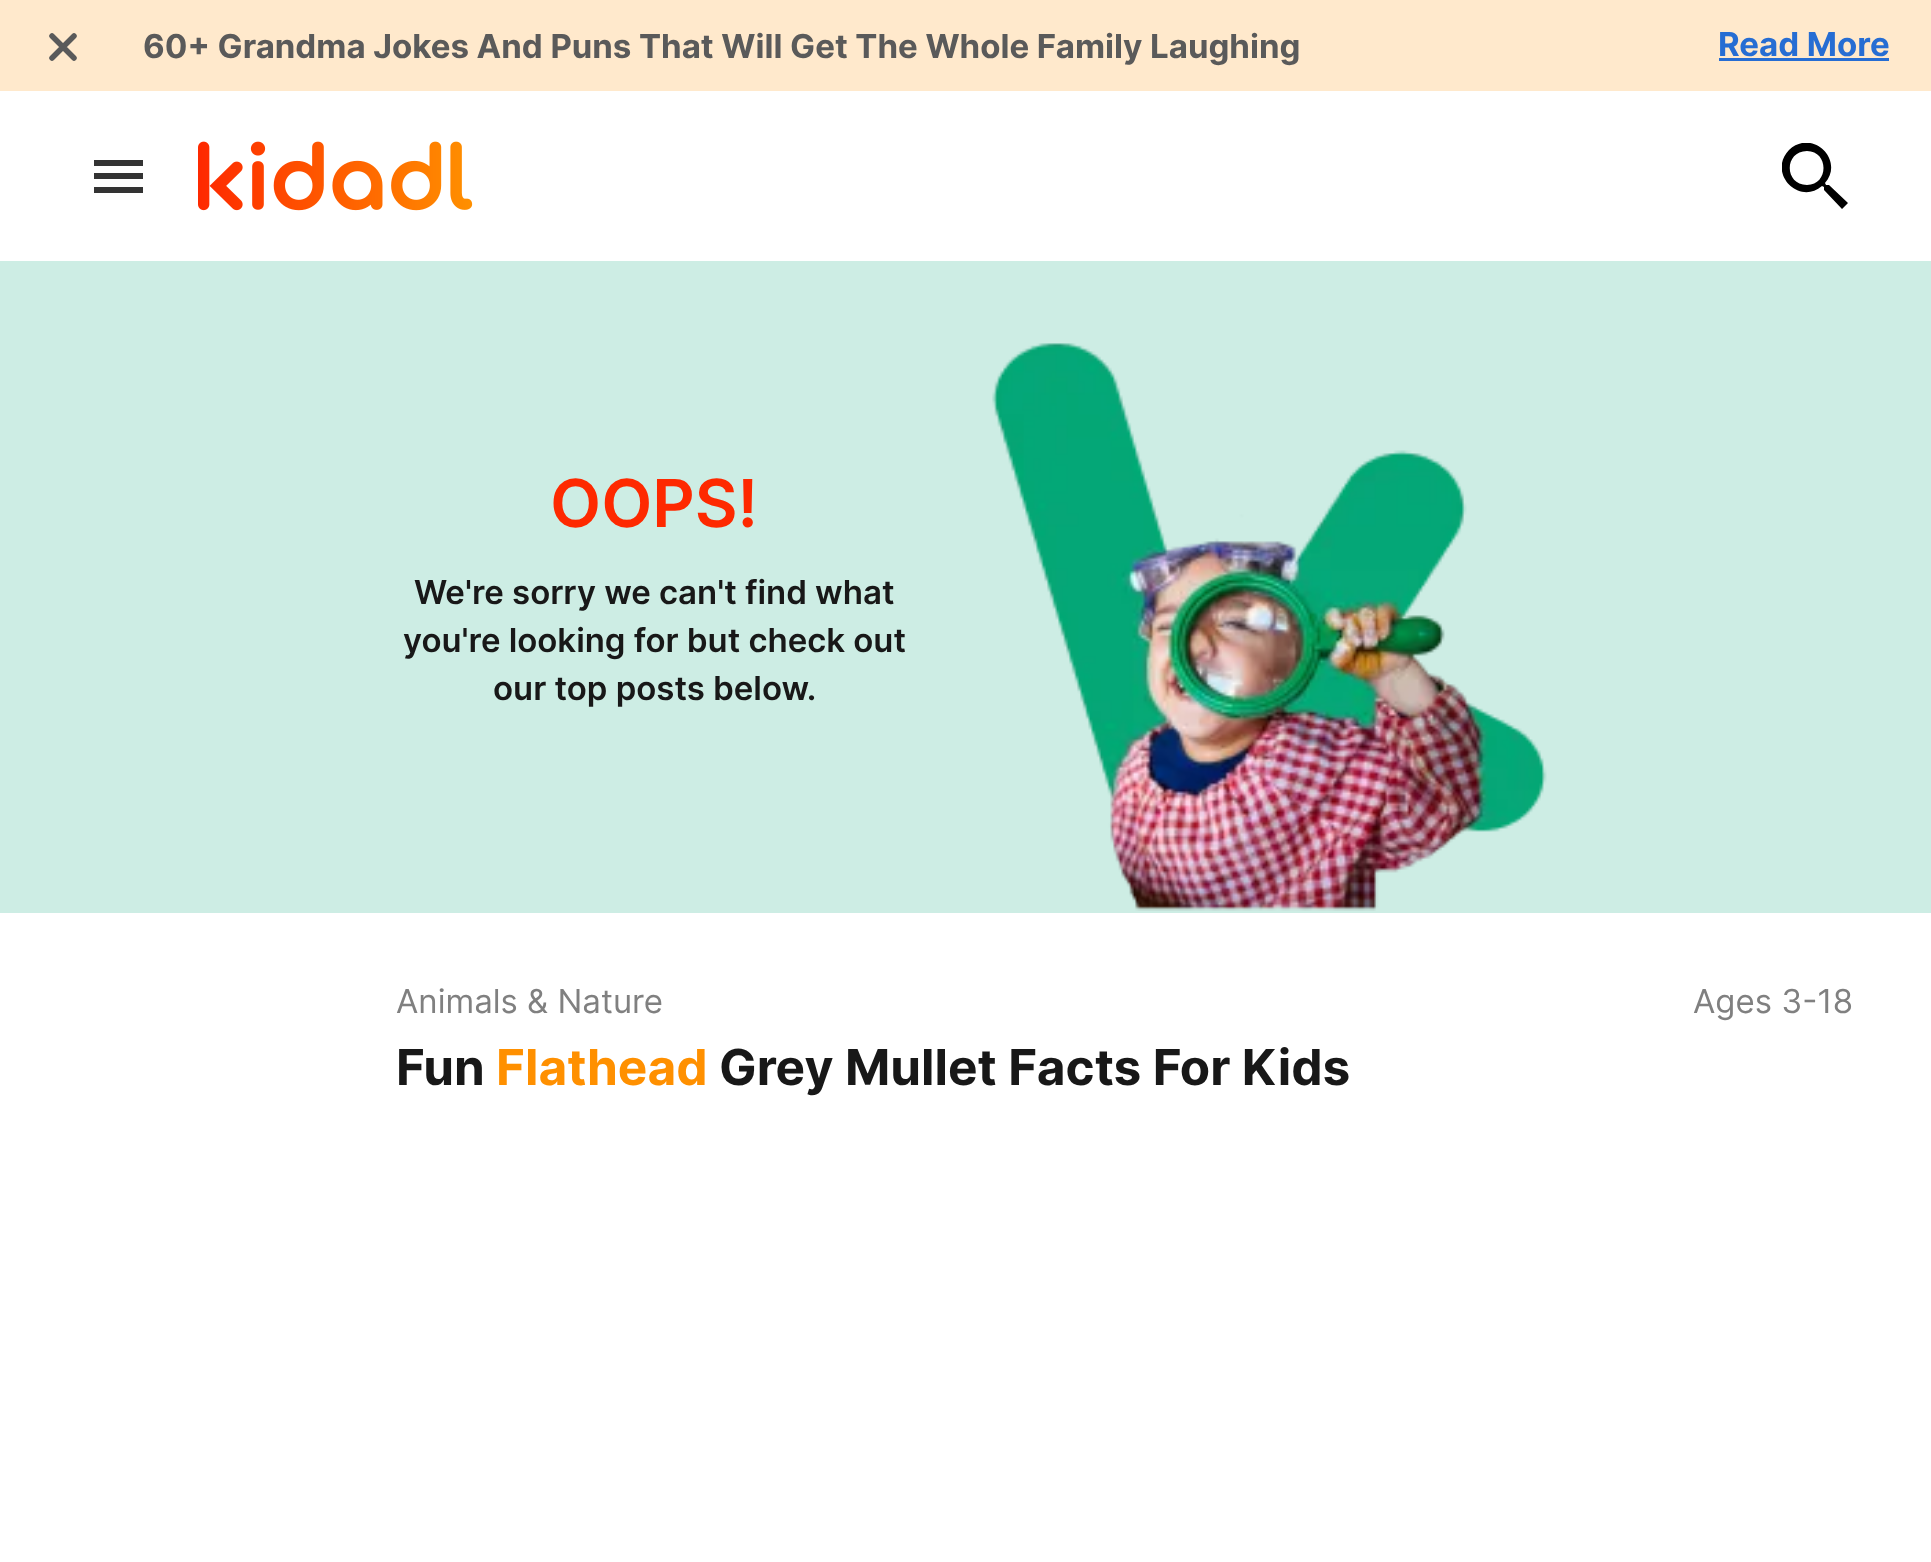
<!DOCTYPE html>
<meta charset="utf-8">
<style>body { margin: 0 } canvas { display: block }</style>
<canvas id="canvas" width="1931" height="1562"></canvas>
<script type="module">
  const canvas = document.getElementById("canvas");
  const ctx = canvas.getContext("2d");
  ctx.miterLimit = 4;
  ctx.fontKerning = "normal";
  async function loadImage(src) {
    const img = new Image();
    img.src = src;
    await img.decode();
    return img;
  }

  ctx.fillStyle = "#ffffff";
  ctx.fillRect(0, 0, 1931, 1562);
  ctx.fillStyle = "#ffe9cc";
  ctx.fillRect(0, 0, 1931, 91);
  ctx.font = "bold 33px Inter";
  ctx.fillStyle = "#5a5a5a";
  ctx.fillText("60+ Grandma Jokes And Puns That Will Get The Whole Family Laughing", 143, 58);
  ctx.beginPath();
  ctx.moveTo(74, 36);
  ctx.lineTo(52, 58);
  ctx.moveTo(52, 36);
  ctx.lineTo(74, 58);
  ctx.strokeStyle = "#5a5a5a";
  ctx.lineWidth = 5.5;
  ctx.lineCap = "round";
  ctx.lineJoin = "round";
  ctx.stroke();
  ctx.fillStyle = "#266dd3";
  ctx.fillText("Read More", 1718, 56);
  ctx.fillRect(1719, 58, 170, 3);
  ctx.fillStyle = "#333333";
  ctx.fillRect(94, 160, 49, 6);
  ctx.fillRect(94, 173, 49, 6);
  ctx.fillRect(94, 187, 49, 6);
  ctx.drawImage(await loadImage("img1.png"), 198, 141, 275, 70);
  ctx.save();
  ctx.beginPath();
  ctx.rect(1782, 143, 66, 66);
  ctx.clip();
  ctx.fillStyle = "#000000";
  ctx.beginPath();
  ctx.moveTo(1829, 185);
  ctx.lineTo(1826, 185);
  ctx.lineTo(1825, 183);
  ctx.bezierCurveTo(1845, 160, 1812, 128, 1789, 150);
  ctx.bezierCurveTo(1767, 173, 1799, 206, 1822, 186);
  ctx.lineTo(1824, 187);
  ctx.lineTo(1824, 190);
  ctx.lineTo(1842, 209);
  ctx.lineTo(1848, 203);
  ctx.closePath();
  ctx.moveTo(1807, 185);
  ctx.bezierCurveTo(1784, 185, 1784, 151, 1807, 151);
  ctx.bezierCurveTo(1829, 151, 1829, 185, 1807, 185);
  ctx.closePath();
  ctx.fill();
  ctx.restore();
  ctx.fillStyle = "#cdede4";
  ctx.fillRect(0, 261, 1931, 652);
  ctx.font = "600 66px Inter";
  ctx.fillStyle = "#fe2900";
  ctx.fillText("OOPS!", 550, 527);
  ctx.font = "600 33px Inter";
  ctx.fillStyle = "#181818";
  ctx.fillText("We're sorry we can't find what", 414, 604);
  ctx.fillText("you're looking for but check out", 403, 652);
  ctx.fillText("our top posts below.", 493, 700);
  ctx.drawImage(await loadImage("img2.png"), 992, 343, 555, 568);
  ctx.font = "33px Inter";
  ctx.fillStyle = "#808080";
  ctx.fillText("Animals & Nature", 396, 1013);
  ctx.fillText("Ages 3-18", 1693, 1013);
  ctx.font = "bold 49.5px Inter";
  ctx.fillStyle = "#181818";
  ctx.fillText("Fun", 396, 1085);
  ctx.fillStyle = "#ff9000";
  ctx.fillText("Flathead", 496, 1085);
  ctx.fillStyle = "#181818";
  ctx.fillText("Grey Mullet Facts For Kids", 719, 1085);
</script>
